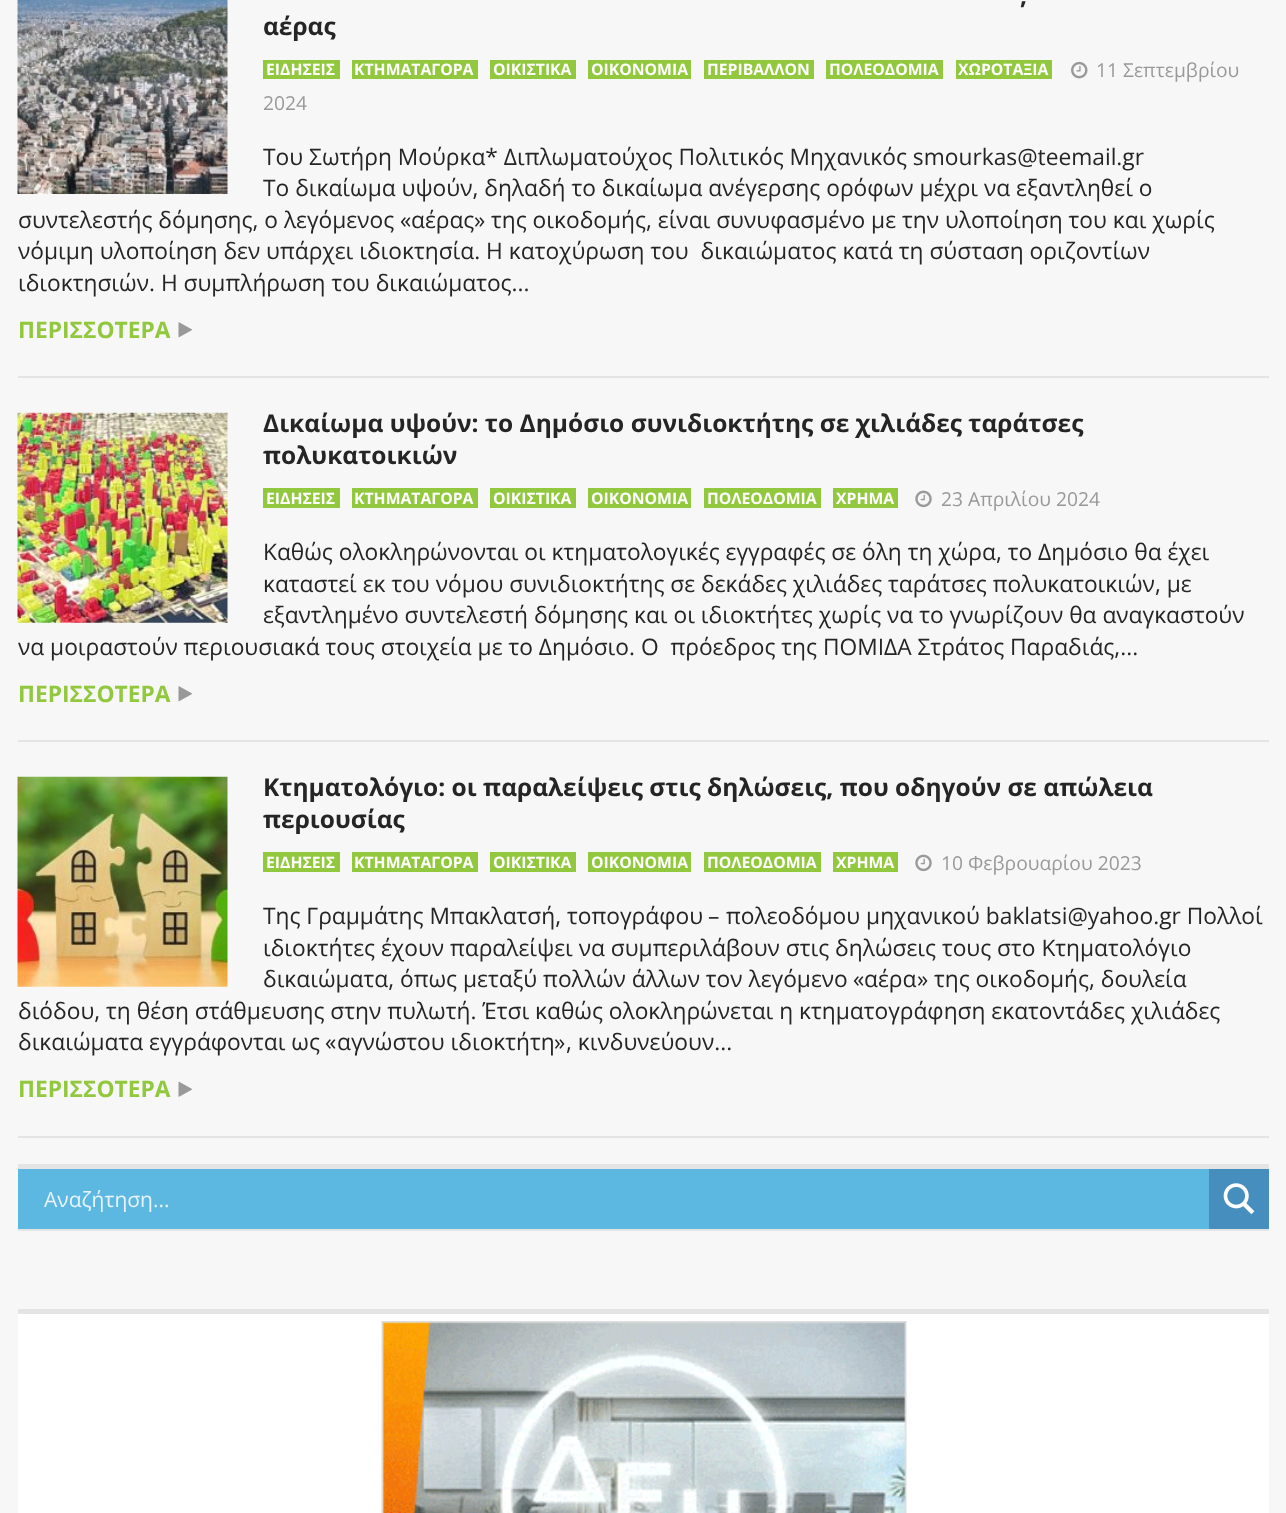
<!DOCTYPE html>
<meta charset="utf-8">
<style>body { margin: 0 } canvas { display: block }</style>
<canvas id="canvas" width="1286" height="1513"></canvas>
<script type="module">
  const canvas = document.getElementById("canvas");
  const ctx = canvas.getContext("2d");
  ctx.miterLimit = 4;
  ctx.fontKerning = "normal";
  async function loadImage(src) {
    const img = new Image();
    img.src = src;
    await img.decode();
    return img;
  }

  ctx.fillStyle = "#f7f7f7";
  ctx.fillRect(0, 0, 1286, 1513);
  ctx.fillStyle = "#e4e4e4";
  ctx.fillRect(18, 376, 1251, 2);
  ctx.drawImage(await loadImage("img1.png"), 17, 0, 211, 194);
  ctx.font = "bold 24.5px Open Sans";
  ctx.fillStyle = "#252525";
  ctx.fillText(",", 1020, 4);
  ctx.fillText("αέρας", 263, 35);
  ctx.drawImage(await loadImage("img2.png"), 1071, 61, 17, 18);
  ctx.font = "19.25px Open Sans";
  ctx.fillStyle = "#999999";
  ctx.fillText("11 Σεπτεμβρίου", 1096, 77);
  ctx.fillText("2024", 263, 110);
  ctx.fillStyle = "#92c83e";
  ctx.fillRect(263, 60, 77, 19);
  ctx.font = "bold 15.75px Open Sans";
  ctx.fillStyle = "#ffffff";
  ctx.fillText("ΕΙΔΗΣΕΙΣ", 266, 75);
  ctx.fillStyle = "#92c83e";
  ctx.fillRect(352, 60, 126, 19);
  ctx.fillStyle = "#ffffff";
  ctx.fillText("ΚΤΗΜΑΤΑΓΟΡΑ", 354, 75);
  ctx.fillStyle = "#92c83e";
  ctx.fillRect(490, 60, 86, 19);
  ctx.fillStyle = "#ffffff";
  ctx.fillText("ΟΙΚΙΣΤΙΚΑ", 493, 75);
  ctx.fillStyle = "#92c83e";
  ctx.fillRect(588, 60, 103, 19);
  ctx.fillStyle = "#ffffff";
  ctx.fillText("ΟΙΚΟΝΟΜΙΑ", 591, 75);
  ctx.fillStyle = "#92c83e";
  ctx.fillRect(704, 60, 110, 19);
  ctx.fillStyle = "#ffffff";
  ctx.fillText("ΠΕΡΙΒΑΛΛΟΝ", 707, 75);
  ctx.fillStyle = "#92c83e";
  ctx.fillRect(826, 60, 117, 19);
  ctx.fillStyle = "#ffffff";
  ctx.fillText("ΠΟΛΕΟΔΟΜΙΑ", 829, 75);
  ctx.fillStyle = "#92c83e";
  ctx.fillRect(956, 60, 96, 19);
  ctx.fillStyle = "#ffffff";
  ctx.fillText("ΧΩΡΟΤΑΞΙΑ", 958, 75);
  ctx.font = "22.75px Open Sans";
  ctx.fillStyle = "#252525";
  ctx.fillText("Του Σωτήρη Μούρκα* Διπλωματούχος Πολιτικός Μηχανικός smourkas@teemail.gr", 263, 165);
  ctx.fillText("Το δικαίωμα υψούν, δηλαδή το δικαίωμα ανέγερσης ορόφων μέχρι να εξαντληθεί ο", 263, 196);
  ctx.fillText("συντελεστής δόμησης, ο λεγόμενος", 18, 228);
  ctx.font = "22.75px 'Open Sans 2'";
  ctx.fillText("«", 400, 228);
  ctx.font = "22.75px Open Sans";
  ctx.fillText("αέρας", 411, 228);
  ctx.font = "22.75px 'Open Sans 2'";
  ctx.fillText("»", 474, 228);
  ctx.font = "22.75px Open Sans";
  ctx.fillText("της οικοδομής, είναι συνυφασμένο με την υλοποίηση του και χωρίς", 491, 228);
  ctx.fillText("νόμιμη υλοποίηση δεν υπάρχει ιδιοκτησία. Η κατοχύρωση του  δικαιώματος κατά τη σύσταση οριζοντίων", 18, 259);
  ctx.fillText("ιδιοκτησιών. Η συμπλήρωση του δικαιώματος...", 18, 291);
  ctx.font = "bold 22.75px Open Sans";
  ctx.fillStyle = "#92c83e";
  ctx.fillText("ΠΕΡΙΣΣΟΤΕΡΑ", 18, 338);
  ctx.drawImage(await loadImage("img3.png"), 178, 322, 15, 16);
  ctx.fillStyle = "#e4e4e4";
  ctx.fillRect(18, 740, 1251, 2);
  ctx.drawImage(await loadImage("img4.png"), 17, 412, 211, 211);
  ctx.font = "bold 24.5px Open Sans";
  ctx.fillStyle = "#252525";
  ctx.fillText("Δικαίωμα υψούν: το Δημόσιο συνιδιοκτήτης σε χιλιάδες ταράτσες", 263, 432);
  ctx.fillText("πολυκατοικιών", 263, 464);
  ctx.fillStyle = "#92c83e";
  ctx.fillRect(263, 488, 77, 20);
  ctx.font = "bold 15.75px Open Sans";
  ctx.fillStyle = "#ffffff";
  ctx.fillText("ΕΙΔΗΣΕΙΣ", 266, 504);
  ctx.fillStyle = "#92c83e";
  ctx.fillRect(352, 488, 126, 20);
  ctx.fillStyle = "#ffffff";
  ctx.fillText("ΚΤΗΜΑΤΑΓΟΡΑ", 354, 504);
  ctx.fillStyle = "#92c83e";
  ctx.fillRect(490, 488, 86, 20);
  ctx.fillStyle = "#ffffff";
  ctx.fillText("ΟΙΚΙΣΤΙΚΑ", 493, 504);
  ctx.fillStyle = "#92c83e";
  ctx.fillRect(588, 488, 103, 20);
  ctx.fillStyle = "#ffffff";
  ctx.fillText("ΟΙΚΟΝΟΜΙΑ", 591, 504);
  ctx.fillStyle = "#92c83e";
  ctx.fillRect(704, 488, 117, 20);
  ctx.fillStyle = "#ffffff";
  ctx.fillText("ΠΟΛΕΟΔΟΜΙΑ", 707, 504);
  ctx.fillStyle = "#92c83e";
  ctx.fillRect(833, 488, 65, 20);
  ctx.fillStyle = "#ffffff";
  ctx.fillText("ΧΡΗΜΑ", 836, 504);
  ctx.drawImage(await loadImage("img5.png"), 915, 490, 17, 18);
  ctx.font = "19.25px Open Sans";
  ctx.fillStyle = "#999999";
  ctx.fillText("23 Απριλίου 2024", 941, 506);
  ctx.font = "22.75px Open Sans";
  ctx.fillStyle = "#252525";
  ctx.fillText("Καθώς ολοκληρώνονται οι κτηματολογικές εγγραφές σε όλη τη χώρα, το Δημόσιο θα έχει", 263, 560);
  ctx.fillText("καταστεί εκ του νόμου συνιδιοκτήτης σε δεκάδες χιλιάδες ταράτσες πολυκατοικιών, με", 263, 592);
  ctx.fillText("εξαντλημένο συντελεστή δόμησης και οι ιδιοκτήτες χωρίς να το γνωρίζουν θα αναγκαστούν", 263, 623);
  ctx.fillText("να μοιραστούν περιουσιακά τους στοιχεία με το Δημόσιο. Ο  πρόεδρος της ΠΟΜΙΔΑ Στράτος Παραδιάς,...", 18, 655);
  ctx.font = "bold 22.75px Open Sans";
  ctx.fillStyle = "#92c83e";
  ctx.fillText("ΠΕΡΙΣΣΟΤΕΡΑ", 18, 702);
  ctx.drawImage(await loadImage("img3.png"), 178, 686, 15, 16);
  ctx.fillStyle = "#e4e4e4";
  ctx.fillRect(18, 1136, 1251, 2);
  ctx.drawImage(await loadImage("img6.png"), 17, 776, 211, 211);
  ctx.font = "bold 24.5px Open Sans";
  ctx.fillStyle = "#252525";
  ctx.fillText("Κτηματολόγιο: οι παραλείψεις στις δηλώσεις, που οδηγούν σε απώλεια", 263, 796);
  ctx.fillText("περιουσίας", 263, 828);
  ctx.fillStyle = "#92c83e";
  ctx.fillRect(263, 852, 77, 20);
  ctx.font = "bold 15.75px Open Sans";
  ctx.fillStyle = "#ffffff";
  ctx.fillText("ΕΙΔΗΣΕΙΣ", 266, 868);
  ctx.fillStyle = "#92c83e";
  ctx.fillRect(352, 852, 126, 20);
  ctx.fillStyle = "#ffffff";
  ctx.fillText("ΚΤΗΜΑΤΑΓΟΡΑ", 354, 868);
  ctx.fillStyle = "#92c83e";
  ctx.fillRect(490, 852, 86, 20);
  ctx.fillStyle = "#ffffff";
  ctx.fillText("ΟΙΚΙΣΤΙΚΑ", 493, 868);
  ctx.fillStyle = "#92c83e";
  ctx.fillRect(588, 852, 103, 20);
  ctx.fillStyle = "#ffffff";
  ctx.fillText("ΟΙΚΟΝΟΜΙΑ", 591, 868);
  ctx.fillStyle = "#92c83e";
  ctx.fillRect(704, 852, 117, 20);
  ctx.fillStyle = "#ffffff";
  ctx.fillText("ΠΟΛΕΟΔΟΜΙΑ", 707, 868);
  ctx.fillStyle = "#92c83e";
  ctx.fillRect(833, 852, 65, 20);
  ctx.fillStyle = "#ffffff";
  ctx.fillText("ΧΡΗΜΑ", 836, 868);
  ctx.drawImage(await loadImage("img5.png"), 915, 854, 17, 18);
  ctx.font = "19.25px Open Sans";
  ctx.fillStyle = "#999999";
  ctx.fillText("10 Φεβρουαρίου 2023", 941, 870);
  ctx.font = "22.75px Open Sans";
  ctx.fillStyle = "#252525";
  ctx.fillText("Της Γραμμάτης Μπακλατσή, τοπογράφου", 263, 924);
  ctx.font = "22.75px 'Open Sans 2'";
  ctx.fillText("–", 708, 924);
  ctx.font = "22.75px Open Sans";
  ctx.fillText("πολεοδόμου μηχανικού baklatsi@yahoo.gr Πολλοί", 726, 924);
  ctx.fillText("ιδιοκτήτες έχουν παραλείψει να συμπεριλάβουν στις δηλώσεις τους στο Κτηματολόγιο", 263, 956);
  ctx.fillText("δικαιώματα, όπως μεταξύ πολλών άλλων τον λεγόμενο", 263, 987);
  ctx.font = "22.75px 'Open Sans 2'";
  ctx.fillText("«", 853, 987);
  ctx.font = "22.75px Open Sans";
  ctx.fillText("αέρα", 864, 987);
  ctx.font = "22.75px 'Open Sans 2'";
  ctx.fillText("»", 917, 987);
  ctx.font = "22.75px Open Sans";
  ctx.fillText("της οικοδομής, δουλεία", 934, 987);
  ctx.fillText("διόδου, τη θέση στάθμευσης στην πυλωτή. Έτσι καθώς ολοκληρώνεται η κτηματογράφηση εκατοντάδες χιλιάδες", 18, 1019);
  ctx.fillText("δικαιώματα εγγράφονται ως", 18, 1050);
  ctx.font = "22.75px 'Open Sans 2'";
  ctx.fillText("«", 325, 1050);
  ctx.font = "22.75px Open Sans";
  ctx.fillText("αγνώστου ιδιοκτήτη", 337, 1050);
  ctx.font = "22.75px 'Open Sans 2'";
  ctx.fillText("»", 554, 1050);
  ctx.font = "22.75px Open Sans";
  ctx.fillText(", κινδυνεύουν...", 566, 1050);
  ctx.font = "bold 22.75px Open Sans";
  ctx.fillStyle = "#92c83e";
  ctx.fillText("ΠΕΡΙΣΣΟΤΕΡΑ", 18, 1097);
  ctx.drawImage(await loadImage("img7.png"), 178, 1081, 15, 16);
  ctx.fillStyle = "#e4e4e4";
  ctx.fillRect(18, 1164, 1251, 5);
  ctx.fillRect(18, 1229, 1251, 2);
  ctx.fillStyle = "#5cb7e1";
  ctx.fillRect(18, 1169, 1191, 60);
  ctx.font = "21px Open Sans";
  ctx.fillStyle = "#e7f4fb";
  ctx.fillText("Αναζήτηση...", 44, 1207);
  ctx.fillStyle = "#468ebe";
  ctx.fillRect(1209, 1169, 60, 60);
  ctx.drawImage(await loadImage("img8.png"), 1223, 1183, 32, 32);
  ctx.fillStyle = "#e4e4e4";
  ctx.fillRect(18, 1309, 1251, 5);
  ctx.fillStyle = "#ffffff";
  ctx.fillRect(18, 1314, 1251, 199);
  ctx.drawImage(await loadImage("img9.png"), 381, 1321, 526, 192);
</script>
